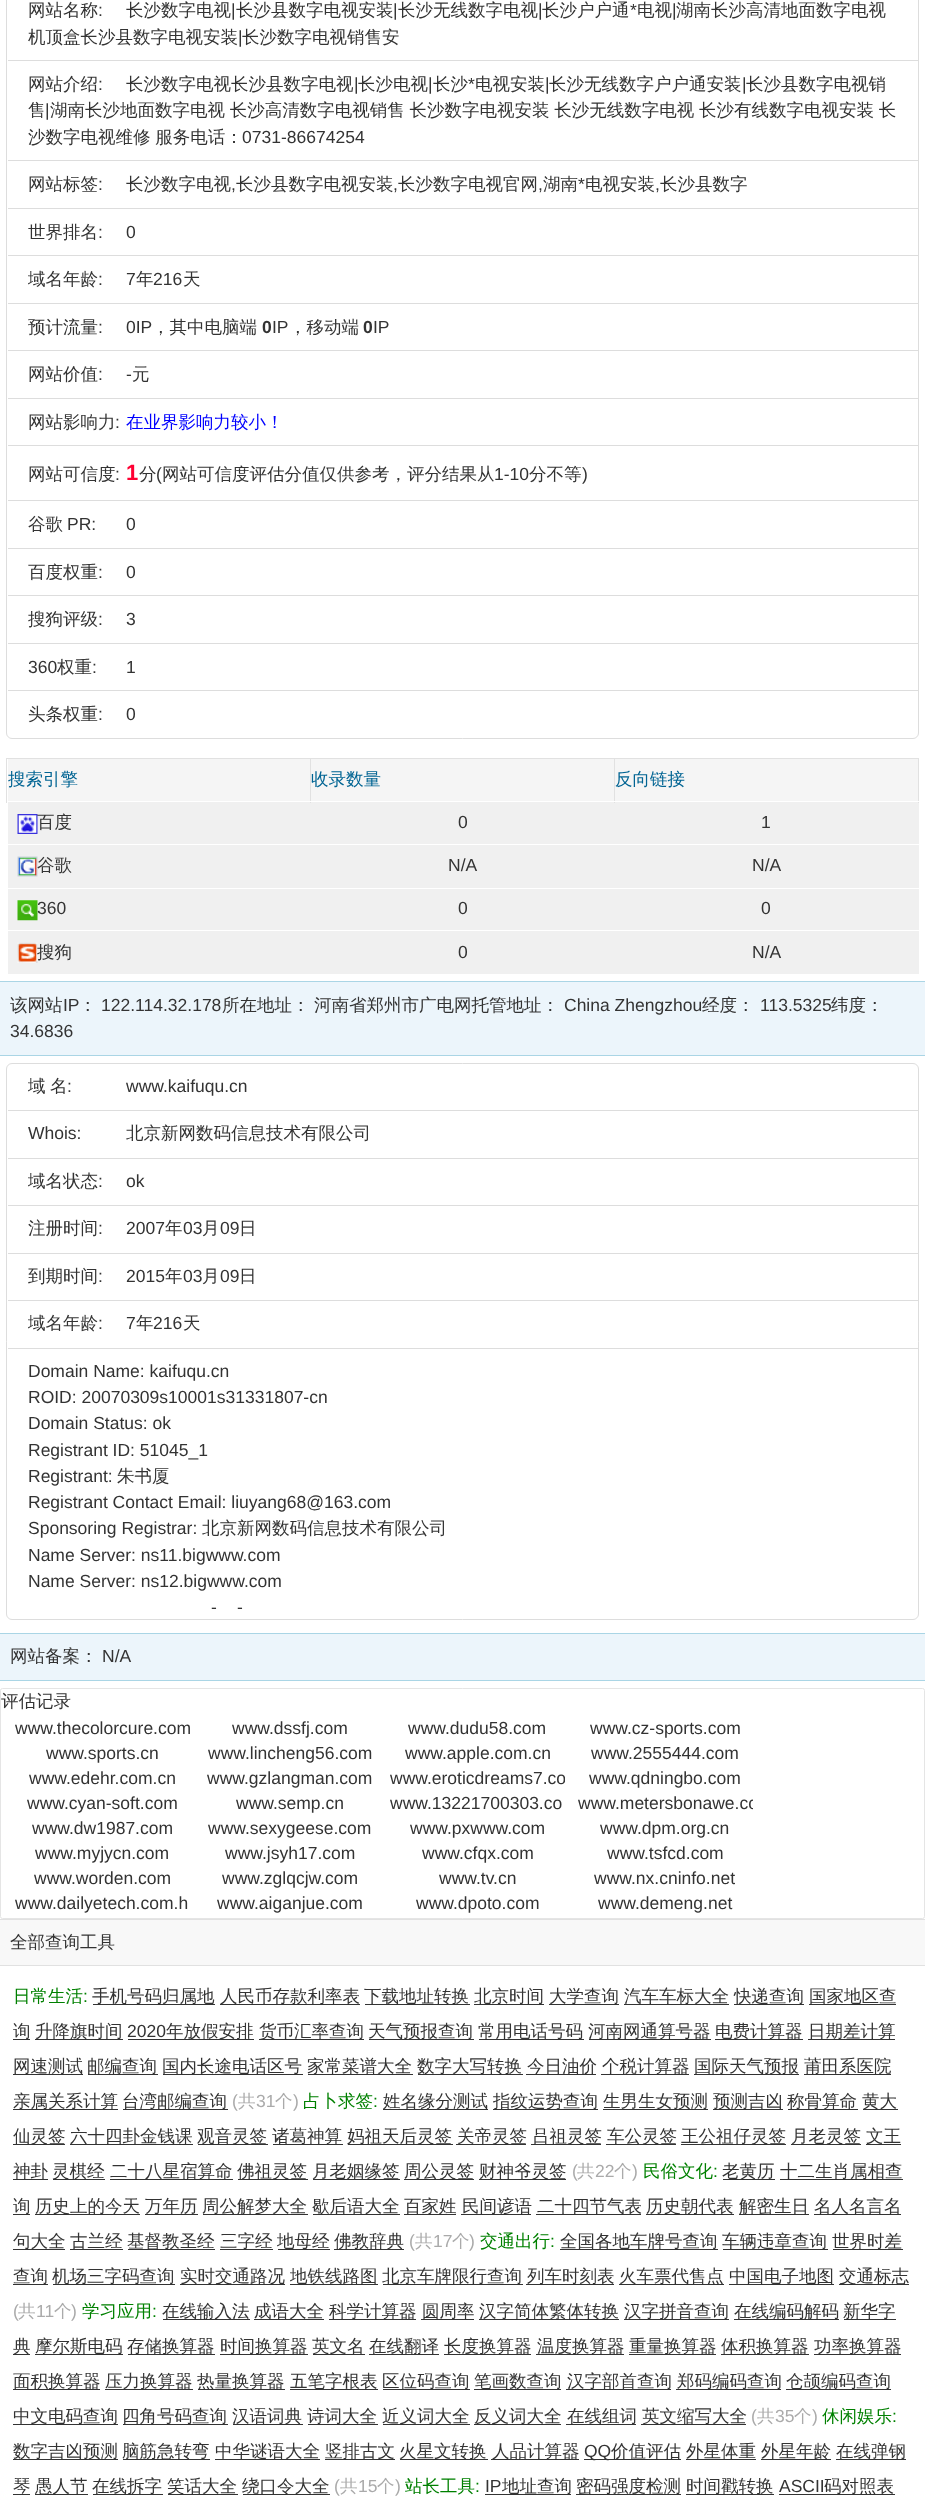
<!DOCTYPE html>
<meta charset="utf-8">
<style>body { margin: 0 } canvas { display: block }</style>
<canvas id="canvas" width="925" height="2514"></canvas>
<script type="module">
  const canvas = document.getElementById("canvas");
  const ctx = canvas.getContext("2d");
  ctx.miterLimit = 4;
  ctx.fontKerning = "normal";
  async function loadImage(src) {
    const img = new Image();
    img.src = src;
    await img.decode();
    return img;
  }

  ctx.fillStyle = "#ffffff";
  ctx.fillRect(0, 0, 925, 2514);
  ctx.beginPath();
  ctx.roundRect(6.5, -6.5, 912, 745, 5.5);
  ctx.strokeStyle = "#dddddd";
  ctx.stroke();
  ctx.font = "500 17.5px WenQuanYi Zen Hei";
  ctx.fillStyle = "#333333";
  ctx.fillText("网站名称", 28, 16);
  ctx.font = "17.5px Liberation Sans";
  ctx.fillText(":", 98, 16);
  ctx.font = "500 17.5px WenQuanYi Zen Hei";
  ctx.fillText("长沙数字电视", 126, 16);
  ctx.font = "17.5px Liberation Sans";
  ctx.fillText("|", 231, 16);
  ctx.font = "500 17.5px WenQuanYi Zen Hei";
  ctx.fillText("长沙县数字电视安装", 236, 16);
  ctx.font = "17.5px Liberation Sans";
  ctx.fillText("|", 393, 16);
  ctx.font = "500 17.5px WenQuanYi Zen Hei";
  ctx.fillText("长沙无线数字电视", 398, 16);
  ctx.font = "17.5px Liberation Sans";
  ctx.fillText("|", 538, 16);
  ctx.font = "500 17.5px WenQuanYi Zen Hei";
  ctx.fillText("长沙户户通", 542, 16);
  ctx.font = "17.5px Liberation Sans";
  ctx.fillText("*", 630, 16);
  ctx.font = "500 17.5px WenQuanYi Zen Hei";
  ctx.fillText("电视", 637, 16);
  ctx.font = "17.5px Liberation Sans";
  ctx.fillText("|", 672, 16);
  ctx.font = "500 17.5px WenQuanYi Zen Hei";
  ctx.fillText("湖南长沙高清地面数字电视", 676, 16);
  ctx.fillText("机顶盒长沙县数字电视安装", 28, 43);
  ctx.font = "17.5px Liberation Sans";
  ctx.fillText("|", 238, 43);
  ctx.font = "500 17.5px WenQuanYi Zen Hei";
  ctx.fillText("长沙数字电视销售安", 242, 43);
  ctx.fillStyle = "#dddddd";
  ctx.fillRect(8, 60, 910, 1);
  ctx.fillStyle = "#333333";
  ctx.fillText("网站介绍", 28, 90);
  ctx.font = "17.5px Liberation Sans";
  ctx.fillText(":", 98, 90);
  ctx.font = "500 17.5px WenQuanYi Zen Hei";
  ctx.fillText("长沙数字电视长沙县数字电视", 126, 90);
  ctx.font = "17.5px Liberation Sans";
  ctx.fillText("|", 354, 90);
  ctx.font = "500 17.5px WenQuanYi Zen Hei";
  ctx.fillText("长沙电视", 358, 90);
  ctx.font = "17.5px Liberation Sans";
  ctx.fillText("|", 428, 90);
  ctx.font = "500 17.5px WenQuanYi Zen Hei";
  ctx.fillText("长沙", 433, 90);
  ctx.font = "17.5px Liberation Sans";
  ctx.fillText("*", 468, 90);
  ctx.font = "500 17.5px WenQuanYi Zen Hei";
  ctx.fillText("电视安装", 475, 90);
  ctx.font = "17.5px Liberation Sans";
  ctx.fillText("|", 545, 90);
  ctx.font = "500 17.5px WenQuanYi Zen Hei";
  ctx.fillText("长沙无线数字户户通安装", 549, 90);
  ctx.font = "17.5px Liberation Sans";
  ctx.fillText("|", 742, 90);
  ctx.font = "500 17.5px WenQuanYi Zen Hei";
  ctx.fillText("长沙县数字电视销", 746, 90);
  ctx.fillText("售", 28, 116);
  ctx.font = "17.5px Liberation Sans";
  ctx.fillText("|", 45, 116);
  ctx.wordSpacing = "-0.5px";
  ctx.font = "500 17.5px WenQuanYi Zen Hei";
  ctx.fillText("湖南长沙地面数字电视 长沙高清数字电视销售 长沙数字电视安装 长沙无线数字电视 长沙有线数字电视安装 长", 50, 116);
  ctx.fillText("沙数字电视维修 服务电话：", 28, 143);
  ctx.wordSpacing = "0px";
  ctx.font = "17.5px Liberation Sans";
  ctx.fillText("0731-86674254", 242, 143);
  ctx.fillStyle = "#dddddd";
  ctx.fillRect(8, 160, 910, 1);
  ctx.font = "500 17.5px WenQuanYi Zen Hei";
  ctx.fillStyle = "#333333";
  ctx.fillText("网站标签", 28, 190);
  ctx.font = "17.5px Liberation Sans";
  ctx.fillText(":", 98, 190);
  ctx.font = "500 17.5px WenQuanYi Zen Hei";
  ctx.fillText("长沙数字电视", 126, 190);
  ctx.fillText("长沙县数字电视安装", 236, 190);
  ctx.fillText("长沙数字电视官网", 398, 190);
  ctx.fillText("湖南", 543, 190);
  ctx.font = "17.5px Liberation Sans";
  ctx.fillText("*", 578, 190);
  ctx.font = "500 17.5px WenQuanYi Zen Hei";
  ctx.fillText("电视安装", 585, 190);
  ctx.fillText("长沙县数字", 660, 190);
  ctx.font = "17.5px Liberation Sans";
  ctx.fillText(",", 231, 190);
  ctx.fillText(",", 393, 190);
  ctx.fillText(",", 538, 190);
  ctx.fillText(",", 655, 190);
  ctx.fillStyle = "#dddddd";
  ctx.fillRect(8, 208, 910, 1);
  ctx.font = "500 17.5px WenQuanYi Zen Hei";
  ctx.fillStyle = "#333333";
  ctx.fillText("世界排名", 28, 238);
  ctx.font = "17.5px Liberation Sans";
  ctx.fillText(":", 98, 238);
  ctx.fillText("0", 126, 238);
  ctx.fillStyle = "#dddddd";
  ctx.fillRect(8, 255, 910, 1);
  ctx.font = "500 17.5px WenQuanYi Zen Hei";
  ctx.fillStyle = "#333333";
  ctx.fillText("域名年龄", 28, 285);
  ctx.font = "17.5px Liberation Sans";
  ctx.fillText(":", 98, 285);
  ctx.fillText("7", 126, 285);
  ctx.font = "500 17.5px WenQuanYi Zen Hei";
  ctx.fillText("年", 136, 285);
  ctx.font = "17.5px Liberation Sans";
  ctx.fillText("216", 153, 285);
  ctx.font = "500 17.5px WenQuanYi Zen Hei";
  ctx.fillText("天", 183, 285);
  ctx.fillStyle = "#dddddd";
  ctx.fillRect(8, 303, 910, 1);
  ctx.fillStyle = "#333333";
  ctx.fillText("预计流量", 28, 333);
  ctx.font = "17.5px Liberation Sans";
  ctx.fillText(":", 98, 333);
  ctx.fillText("0IP", 126, 333);
  ctx.font = "500 17.5px WenQuanYi Zen Hei";
  ctx.fillText("，其中电脑端", 152, 333);
  ctx.font = "bold 17.5px Liberation Sans";
  ctx.fillText("0", 262, 333);
  ctx.font = "17.5px Liberation Sans";
  ctx.fillText("IP", 272, 333);
  ctx.font = "500 17.5px WenQuanYi Zen Hei";
  ctx.fillText("，移动端", 289, 333);
  ctx.font = "bold 17.5px Liberation Sans";
  ctx.fillText("0", 363, 333);
  ctx.font = "17.5px Liberation Sans";
  ctx.fillText("IP", 373, 333);
  ctx.fillStyle = "#dddddd";
  ctx.fillRect(8, 350, 910, 1);
  ctx.font = "500 17.5px WenQuanYi Zen Hei";
  ctx.fillStyle = "#333333";
  ctx.fillText("网站价值", 28, 380);
  ctx.font = "17.5px Liberation Sans";
  ctx.fillText(":", 98, 380);
  ctx.fillText("-", 126, 380);
  ctx.font = "500 17.5px WenQuanYi Zen Hei";
  ctx.fillText("元", 132, 380);
  ctx.fillStyle = "#dddddd";
  ctx.fillRect(8, 398, 910, 1);
  ctx.fillStyle = "#333333";
  ctx.fillText("网站影响力", 28, 428);
  ctx.font = "17.5px Liberation Sans";
  ctx.fillText(":", 115, 428);
  ctx.font = "500 17.5px WenQuanYi Zen Hei";
  ctx.fillStyle = "#0000ff";
  ctx.fillText("在业界影响力较小！", 126, 428);
  ctx.fillStyle = "#dddddd";
  ctx.fillRect(8, 445, 910, 1);
  ctx.fillStyle = "#333333";
  ctx.fillText("网站可信度", 28, 480);
  ctx.font = "17.5px Liberation Sans";
  ctx.fillText(":", 115, 480);
  ctx.font = "bold 22px Liberation Sans";
  ctx.fillStyle = "#ff0033";
  ctx.fillText("1", 126, 480);
  ctx.font = "500 17.5px WenQuanYi Zen Hei";
  ctx.fillStyle = "#333333";
  ctx.fillText("分", 139, 480);
  ctx.font = "17.5px Liberation Sans";
  ctx.fillText("(", 156, 480);
  ctx.font = "500 17.5px WenQuanYi Zen Hei";
  ctx.fillText("网站可信度评估分值仅供参考，评分结果从", 162, 480);
  ctx.font = "17.5px Liberation Sans";
  ctx.fillText("1-10", 494, 480);
  ctx.font = "500 17.5px WenQuanYi Zen Hei";
  ctx.fillText("分不等", 529, 480);
  ctx.font = "17.5px Liberation Sans";
  ctx.fillText(")", 582, 480);
  ctx.fillStyle = "#dddddd";
  ctx.fillRect(8, 500, 910, 1);
  ctx.font = "500 17.5px WenQuanYi Zen Hei";
  ctx.fillStyle = "#333333";
  ctx.fillText("谷歌", 28, 530);
  ctx.font = "17.5px Liberation Sans";
  ctx.fillText("PR:", 67, 530);
  ctx.fillText("0", 126, 530);
  ctx.fillStyle = "#dddddd";
  ctx.fillRect(8, 548, 910, 1);
  ctx.font = "500 17.5px WenQuanYi Zen Hei";
  ctx.fillStyle = "#333333";
  ctx.fillText("百度权重", 28, 578);
  ctx.font = "17.5px Liberation Sans";
  ctx.fillText(":", 98, 578);
  ctx.fillText("0", 126, 578);
  ctx.fillStyle = "#dddddd";
  ctx.fillRect(8, 595, 910, 1);
  ctx.font = "500 17.5px WenQuanYi Zen Hei";
  ctx.fillStyle = "#333333";
  ctx.fillText("搜狗评级", 28, 625);
  ctx.font = "17.5px Liberation Sans";
  ctx.fillText(":", 98, 625);
  ctx.fillText("3", 126, 625);
  ctx.fillStyle = "#dddddd";
  ctx.fillRect(8, 643, 910, 1);
  ctx.fillStyle = "#333333";
  ctx.fillText("360", 28, 673);
  ctx.font = "500 17.5px WenQuanYi Zen Hei";
  ctx.fillText("权重", 57, 673);
  ctx.font = "17.5px Liberation Sans";
  ctx.fillText(":", 92, 673);
  ctx.fillText("1", 126, 673);
  ctx.fillStyle = "#dddddd";
  ctx.fillRect(8, 690, 910, 1);
  ctx.font = "500 17.5px WenQuanYi Zen Hei";
  ctx.fillStyle = "#333333";
  ctx.fillText("头条权重", 28, 720);
  ctx.font = "17.5px Liberation Sans";
  ctx.fillText(":", 98, 720);
  ctx.fillText("0", 126, 720);
  ctx.fillStyle = "#f5f5f5";
  ctx.fillRect(8, 759, 302, 42);
  ctx.fillStyle = "#e1e1e1";
  ctx.fillRect(614, 758, 305, 1);
  ctx.fillStyle = "#f0f0f0";
  ctx.fillRect(8, 802, 911, 42);
  ctx.fillStyle = "#e1e1e1";
  ctx.fillRect(614, 758, 1, 45);
  ctx.fillRect(310, 758, 305, 1);
  ctx.fillRect(310, 758, 1, 45);
  ctx.fillRect(6, 758, 305, 1);
  ctx.fillStyle = "#ffffff";
  ctx.fillRect(310, 801, 1, 1);
  ctx.fillStyle = "#e1e1e1";
  ctx.fillRect(6, 758, 1, 45);
  ctx.font = "500 17.5px WenQuanYi Zen Hei";
  ctx.fillStyle = "#016493";
  ctx.fillText("搜索引擎", 8, 785);
  ctx.fillStyle = "#f5f5f5";
  ctx.fillRect(311, 759, 303, 42);
  ctx.fillStyle = "#ffffff";
  ctx.fillRect(614, 801, 1, 1);
  ctx.fillStyle = "#016493";
  ctx.fillText("收录数量", 311, 785);
  ctx.fillStyle = "#f5f5f5";
  ctx.fillRect(615, 759, 303, 42);
  ctx.fillStyle = "#e1e1e1";
  ctx.fillRect(918, 758, 1, 45);
  ctx.fillStyle = "#ffffff";
  ctx.fillRect(918, 801, 1, 1);
  ctx.fillStyle = "#016493";
  ctx.fillText("反向链接", 615, 785);
  ctx.drawImage(await loadImage("img1.png"), 17, 814, 21, 20);
  ctx.fillStyle = "#333333";
  ctx.fillText("百度", 37, 828);
  ctx.font = "17.5px Liberation Sans";
  ctx.fillText("0", 458, 828);
  ctx.fillText("1", 761, 828);
  ctx.fillStyle = "#f0f0f0";
  ctx.fillRect(8, 845, 911, 43);
  ctx.drawImage(await loadImage("img2.png"), 17, 856, 21, 21);
  ctx.font = "500 17.5px WenQuanYi Zen Hei";
  ctx.fillStyle = "#333333";
  ctx.fillText("谷歌", 37, 871);
  ctx.font = "17.5px Liberation Sans";
  ctx.fillText("N/A", 448, 871);
  ctx.fillText("N/A", 752, 871);
  ctx.fillStyle = "#f0f0f0";
  ctx.fillRect(8, 889, 911, 41);
  ctx.drawImage(await loadImage("img3.png"), 17, 900, 21, 21);
  ctx.fillStyle = "#333333";
  ctx.fillText("360", 37, 914);
  ctx.fillText("0", 458, 914);
  ctx.fillText("0", 761, 914);
  ctx.fillStyle = "#f0f0f0";
  ctx.fillRect(8, 931, 911, 43);
  ctx.drawImage(await loadImage("img4.png"), 17, 942, 21, 21);
  ctx.font = "500 17.5px WenQuanYi Zen Hei";
  ctx.fillStyle = "#333333";
  ctx.fillText("搜狗", 37, 958);
  ctx.font = "17.5px Liberation Sans";
  ctx.fillText("0", 458, 958);
  ctx.fillText("N/A", 752, 958);
  ctx.fillStyle = "#ecf5fb";
  ctx.fillRect(0, 982, 925, 73);
  ctx.fillStyle = "#aad5e5";
  ctx.fillRect(0, 981, 925, 1);
  ctx.fillRect(0, 1055, 925, 1);
  ctx.font = "500 17.5px WenQuanYi Zen Hei";
  ctx.fillStyle = "#333333";
  ctx.fillText("该网站", 10, 1011);
  ctx.font = "17.5px Liberation Sans";
  ctx.fillText("IP", 63, 1011);
  ctx.font = "500 17.5px WenQuanYi Zen Hei";
  ctx.fillText("：", 79, 1011);
  ctx.font = "17.5px Liberation Sans";
  ctx.fillText("122.114.32.178", 101, 1011);
  ctx.font = "500 17.5px WenQuanYi Zen Hei";
  ctx.fillText("所在地址：", 222, 1011);
  ctx.fillText("河南省郑州市广电网托管地址：", 314, 1011);
  ctx.font = "17.5px Liberation Sans";
  ctx.fillText("China Zhengzhou", 564, 1011);
  ctx.font = "500 17.5px WenQuanYi Zen Hei";
  ctx.fillText("经度：", 702, 1011);
  ctx.font = "17.5px Liberation Sans";
  ctx.fillText("113.5325", 760, 1011);
  ctx.font = "500 17.5px WenQuanYi Zen Hei";
  ctx.fillText("纬度：", 831, 1011);
  ctx.font = "17.5px Liberation Sans";
  ctx.fillText("34.6836", 10, 1037);
  ctx.beginPath();
  ctx.roundRect(6.5, 1063.5, 912, 556, 5.5);
  ctx.stroke();
  ctx.font = "500 17.5px WenQuanYi Zen Hei";
  ctx.fillText("域", 28, 1092);
  ctx.fillText("名", 50, 1092);
  ctx.font = "17.5px Liberation Sans";
  ctx.fillText(":", 67, 1092);
  ctx.fillText("www.kaifuqu.cn", 126, 1092);
  ctx.fillStyle = "#dddddd";
  ctx.fillRect(8, 1110, 910, 1);
  ctx.fillStyle = "#333333";
  ctx.fillText("Whois:", 28, 1139);
  ctx.font = "500 17.5px WenQuanYi Zen Hei";
  ctx.fillText("北京新网数码信息技术有限公司", 126, 1139);
  ctx.fillStyle = "#dddddd";
  ctx.fillRect(8, 1158, 910, 1);
  ctx.fillStyle = "#333333";
  ctx.fillText("域名状态", 28, 1187);
  ctx.font = "17.5px Liberation Sans";
  ctx.fillText(":", 98, 1187);
  ctx.fillText("ok", 126, 1187);
  ctx.fillStyle = "#dddddd";
  ctx.fillRect(8, 1205, 910, 1);
  ctx.font = "500 17.5px WenQuanYi Zen Hei";
  ctx.fillStyle = "#333333";
  ctx.fillText("注册时间", 28, 1234);
  ctx.font = "17.5px Liberation Sans";
  ctx.fillText(":", 98, 1234);
  ctx.fillText("2007", 126, 1234);
  ctx.font = "500 17.5px WenQuanYi Zen Hei";
  ctx.fillText("年", 165, 1234);
  ctx.font = "17.5px Liberation Sans";
  ctx.fillText("03", 183, 1234);
  ctx.font = "500 17.5px WenQuanYi Zen Hei";
  ctx.fillText("月", 202, 1234);
  ctx.font = "17.5px Liberation Sans";
  ctx.fillText("09", 220, 1234);
  ctx.font = "500 17.5px WenQuanYi Zen Hei";
  ctx.fillText("日", 239, 1234);
  ctx.fillStyle = "#dddddd";
  ctx.fillRect(8, 1253, 910, 1);
  ctx.fillStyle = "#333333";
  ctx.fillText("到期时间", 28, 1282);
  ctx.font = "17.5px Liberation Sans";
  ctx.fillText(":", 98, 1282);
  ctx.fillText("2015", 126, 1282);
  ctx.font = "500 17.5px WenQuanYi Zen Hei";
  ctx.fillText("年", 165, 1282);
  ctx.font = "17.5px Liberation Sans";
  ctx.fillText("03", 183, 1282);
  ctx.font = "500 17.5px WenQuanYi Zen Hei";
  ctx.fillText("月", 202, 1282);
  ctx.font = "17.5px Liberation Sans";
  ctx.fillText("09", 220, 1282);
  ctx.font = "500 17.5px WenQuanYi Zen Hei";
  ctx.fillText("日", 239, 1282);
  ctx.fillStyle = "#dddddd";
  ctx.fillRect(8, 1300, 910, 1);
  ctx.fillStyle = "#333333";
  ctx.fillText("域名年龄", 28, 1329);
  ctx.font = "17.5px Liberation Sans";
  ctx.fillText(":", 98, 1329);
  ctx.fillText("7", 126, 1329);
  ctx.font = "500 17.5px WenQuanYi Zen Hei";
  ctx.fillText("年", 136, 1329);
  ctx.font = "17.5px Liberation Sans";
  ctx.fillText("216", 153, 1329);
  ctx.font = "500 17.5px WenQuanYi Zen Hei";
  ctx.fillText("天", 183, 1329);
  ctx.fillStyle = "#dddddd";
  ctx.fillRect(8, 1348, 910, 1);
  ctx.font = "17.5px Liberation Sans";
  ctx.fillStyle = "#333333";
  ctx.fillText("Domain Name: kaifuqu.cn", 28, 1377);
  ctx.fillText("ROID: 20070309s10001s31331807-cn", 28, 1403);
  ctx.fillText("Domain Status: ok", 28, 1429);
  ctx.fillText("Registrant ID: 51045_1", 28, 1456);
  ctx.fillText("Registrant:", 28, 1482);
  ctx.font = "500 17.5px WenQuanYi Zen Hei";
  ctx.fillText("朱书厦", 117, 1482);
  ctx.font = "17.5px Liberation Sans";
  ctx.fillText("Registrant Contact Email: liuyang68@163.com", 28, 1508);
  ctx.fillText("Sponsoring Registrar:", 28, 1534);
  ctx.font = "500 17.5px WenQuanYi Zen Hei";
  ctx.fillText("北京新网数码信息技术有限公司", 202, 1534);
  ctx.font = "17.5px Liberation Sans";
  ctx.fillText("Name Server: ns11.bigwww.com", 28, 1561);
  ctx.fillText("Name Server: ns12.bigwww.com", 28, 1587);
  ctx.fillText("-", 211, 1613);
  ctx.fillText("-", 237, 1613);
  ctx.fillStyle = "#ecf5fb";
  ctx.fillRect(0, 1634, 925, 46);
  ctx.fillStyle = "#aad5e5";
  ctx.fillRect(0, 1633, 925, 1);
  ctx.fillRect(0, 1680, 925, 1);
  ctx.font = "500 17.5px WenQuanYi Zen Hei";
  ctx.fillStyle = "#333333";
  ctx.fillText("网站备案：", 10, 1662);
  ctx.font = "17.5px Liberation Sans";
  ctx.fillText("N/A", 102, 1662);
  ctx.beginPath();
  ctx.roundRect(0.5, 1688.5, 924, 230, 2);
  ctx.strokeStyle = "#e5e5e5";
  ctx.stroke();
  ctx.font = "500 17.5px WenQuanYi Zen Hei";
  ctx.fillText("评估记录", 1, 1707);
  ctx.font = "17.5px Liberation Sans";
  ctx.fillText("www.thecolorcure.com", 15, 1734);
  ctx.fillText("www.dssfj.com", 232, 1734);
  ctx.fillText("www.dudu58.com", 408, 1734);
  ctx.fillText("www.cz-sports.com", 590, 1734);
  ctx.fillText("www.sports.cn", 46, 1759);
  ctx.fillText("www.lincheng56.com", 208, 1759);
  ctx.fillText("www.apple.com.cn", 405, 1759);
  ctx.fillText("www.2555444.com", 591, 1759);
  ctx.fillText("www.edehr.com.cn", 29, 1784);
  ctx.fillText("www.gzlangman.com", 207, 1784);
  ctx.save();
  ctx.beginPath();
  ctx.rect(390, 1766, 175, 25);
  ctx.clip();
  ctx.fillText("www.eroticdreams7.co", 390, 1784);
  ctx.restore();
  ctx.fillText("www.qdningbo.com", 589, 1784);
  ctx.fillText("www.cyan-soft.com", 27, 1809);
  ctx.fillText("www.semp.cn", 236, 1809);
  ctx.fillText("www.13221700303.co", 390, 1809);
  ctx.save();
  ctx.beginPath();
  ctx.rect(578, 1791, 175, 25);
  ctx.clip();
  ctx.fillText("www.metersbonawe.co", 578, 1809);
  ctx.restore();
  ctx.fillText("www.dw1987.com", 32, 1834);
  ctx.fillText("www.sexygeese.com", 208, 1834);
  ctx.fillText("www.pxwww.com", 410, 1834);
  ctx.fillText("www.dpm.org.cn", 600, 1834);
  ctx.fillText("www.myjycn.com", 35, 1859);
  ctx.fillText("www.jsyh17.com", 225, 1859);
  ctx.fillText("www.cfqx.com", 422, 1859);
  ctx.fillText("www.tsfcd.com", 607, 1859);
  ctx.fillText("www.worden.com", 34, 1884);
  ctx.fillText("www.zglqcjw.com", 222, 1884);
  ctx.fillText("www.tv.cn", 439, 1884);
  ctx.fillText("www.nx.cninfo.net", 594, 1884);
  ctx.fillText("www.dailyetech.com.h", 15, 1909);
  ctx.fillText("www.aiganjue.com", 217, 1909);
  ctx.fillText("www.dpoto.com", 416, 1909);
  ctx.fillText("www.demeng.net", 598, 1909);
  ctx.fillStyle = "#f8f8f8";
  ctx.fillRect(0, 1920, 925, 45);
  ctx.fillStyle = "#e1e1e1";
  ctx.fillRect(0, 1919, 925, 1);
  ctx.fillRect(0, 1965, 925, 1);
  ctx.font = "500 17.5px WenQuanYi Zen Hei";
  ctx.fillStyle = "#333333";
  ctx.fillText("全部查询工具", 10, 1948);
  ctx.fillStyle = "#008000";
  ctx.fillText("日常生活", 13, 2002);
  ctx.font = "17.5px Liberation Sans";
  ctx.fillText(":", 83, 2002);
  ctx.fillStyle = "#333333";
  ctx.fillRect(93, 2004, 122, 1);
  ctx.font = "500 17.5px WenQuanYi Zen Hei";
  ctx.fillText("手机号码归属地", 92, 2002);
  ctx.fillRect(220, 2004, 140, 1);
  ctx.fillText("人民币存款利率表", 220, 2002);
  ctx.fillRect(365, 2004, 105, 1);
  ctx.fillText("下载地址转换", 364, 2002);
  ctx.fillRect(474, 2004, 70, 1);
  ctx.fillText("北京时间", 474, 2002);
  ctx.fillRect(549, 2004, 70, 1);
  ctx.fillText("大学查询", 549, 2002);
  ctx.fillRect(624, 2004, 105, 1);
  ctx.fillText("汽车车标大全", 624, 2002);
  ctx.fillRect(734, 2004, 70, 1);
  ctx.fillText("快递查询", 734, 2002);
  ctx.fillRect(809, 2004, 87, 1);
  ctx.fillText("国家地区查", 809, 2002);
  ctx.fillRect(13, 2039, 17, 1);
  ctx.fillText("询", 13, 2037);
  ctx.fillRect(35, 2039, 88, 1);
  ctx.fillText("升降旗时间", 35, 2037);
  ctx.font = "17.5px Liberation Sans";
  ctx.fillText("2020", 127, 2037);
  ctx.fillRect(128, 2039, 126, 1);
  ctx.font = "500 17.5px WenQuanYi Zen Hei";
  ctx.fillText("年放假安排", 166, 2037);
  ctx.fillRect(259, 2039, 105, 1);
  ctx.fillText("货币汇率查询", 259, 2037);
  ctx.fillRect(369, 2039, 105, 1);
  ctx.fillText("天气预报查询", 368, 2037);
  ctx.fillRect(479, 2039, 105, 1);
  ctx.fillText("常用电话号码", 478, 2037);
  ctx.fillRect(589, 2039, 122, 1);
  ctx.fillText("河南网通算号器", 588, 2037);
  ctx.fillRect(715, 2039, 88, 1);
  ctx.fillText("电费计算器", 715, 2037);
  ctx.fillRect(808, 2039, 87, 1);
  ctx.fillText("日期差计算", 808, 2037);
  ctx.fillRect(13, 2074, 70, 1);
  ctx.fillText("网速测试", 13, 2072);
  ctx.fillRect(88, 2074, 70, 1);
  ctx.fillText("邮编查询", 87, 2072);
  ctx.fillRect(163, 2074, 140, 1);
  ctx.fillText("国内长途电话区号", 162, 2072);
  ctx.fillRect(308, 2074, 105, 1);
  ctx.fillText("家常菜谱大全", 307, 2072);
  ctx.fillRect(418, 2074, 105, 1);
  ctx.fillText("数字大写转换", 417, 2072);
  ctx.fillRect(526, 2074, 70, 1);
  ctx.fillText("今日油价", 527, 2072);
  ctx.fillRect(601, 2074, 88, 1);
  ctx.fillText("个税计算器", 602, 2072);
  ctx.fillRect(694, 2074, 105, 1);
  ctx.fillText("国际天气预报", 694, 2072);
  ctx.fillRect(804, 2074, 87, 1);
  ctx.fillText("莆田系医院", 804, 2072);
  ctx.fillRect(13, 2109, 105, 1);
  ctx.fillText("亲属关系计算", 13, 2107);
  ctx.fillRect(123, 2109, 105, 1);
  ctx.fillText("台湾邮编查询", 122, 2107);
  ctx.font = "17.5px Liberation Sans";
  ctx.fillStyle = "#aaaaaa";
  ctx.fillText("(", 232, 2107);
  ctx.font = "500 17.5px WenQuanYi Zen Hei";
  ctx.fillText("共", 238, 2107);
  ctx.font = "17.5px Liberation Sans";
  ctx.fillText("31", 256, 2107);
  ctx.font = "500 17.5px WenQuanYi Zen Hei";
  ctx.fillText("个", 275, 2107);
  ctx.font = "17.5px Liberation Sans";
  ctx.fillText(")", 293, 2107);
  ctx.font = "500 17.5px WenQuanYi Zen Hei";
  ctx.fillStyle = "#008000";
  ctx.fillText("占卜求签", 303, 2107);
  ctx.font = "17.5px Liberation Sans";
  ctx.fillText(":", 373, 2107);
  ctx.fillStyle = "#333333";
  ctx.fillRect(383, 2109, 105, 1);
  ctx.font = "500 17.5px WenQuanYi Zen Hei";
  ctx.fillText("姓名缘分测试", 383, 2107);
  ctx.fillRect(493, 2109, 105, 1);
  ctx.fillText("指纹运势查询", 493, 2107);
  ctx.fillRect(603, 2109, 105, 1);
  ctx.fillText("生男生女预测", 603, 2107);
  ctx.fillRect(713, 2109, 70, 1);
  ctx.fillText("预测吉凶", 713, 2107);
  ctx.fillRect(788, 2109, 70, 1);
  ctx.fillText("称骨算命", 787, 2107);
  ctx.fillRect(863, 2109, 35, 1);
  ctx.fillText("黄大", 862, 2107);
  ctx.fillRect(13, 2144, 52, 1);
  ctx.fillText("仙灵签", 13, 2142);
  ctx.fillRect(70, 2144, 123, 1);
  ctx.fillText("六十四卦金钱课", 70, 2142);
  ctx.fillRect(198, 2144, 70, 1);
  ctx.fillText("观音灵签", 197, 2142);
  ctx.fillRect(273, 2144, 70, 1);
  ctx.fillText("诸葛神算", 272, 2142);
  ctx.fillRect(348, 2144, 105, 1);
  ctx.fillText("妈祖天后灵签", 347, 2142);
  ctx.fillRect(456, 2144, 70, 1);
  ctx.fillText("关帝灵签", 457, 2142);
  ctx.fillRect(531, 2144, 70, 1);
  ctx.fillText("吕祖灵签", 532, 2142);
  ctx.fillRect(606, 2144, 70, 1);
  ctx.fillText("车公灵签", 607, 2142);
  ctx.fillRect(681, 2144, 105, 1);
  ctx.fillText("王公祖仔灵签", 681, 2142);
  ctx.fillRect(791, 2144, 70, 1);
  ctx.fillText("月老灵签", 791, 2142);
  ctx.fillRect(866, 2144, 35, 1);
  ctx.fillText("文王", 866, 2142);
  ctx.fillRect(13, 2179, 35, 1);
  ctx.fillText("神卦", 13, 2177);
  ctx.fillRect(53, 2179, 52, 1);
  ctx.fillText("灵棋经", 52, 2177);
  ctx.fillRect(110, 2179, 123, 1);
  ctx.fillText("二十八星宿算命", 110, 2177);
  ctx.fillRect(238, 2179, 70, 1);
  ctx.fillText("佛祖灵签", 237, 2177);
  ctx.fillRect(313, 2179, 87, 1);
  ctx.fillText("月老姻缘签", 312, 2177);
  ctx.fillRect(404, 2179, 70, 1);
  ctx.fillText("周公灵签", 404, 2177);
  ctx.fillRect(479, 2179, 87, 1);
  ctx.fillText("财神爷灵签", 479, 2177);
  ctx.font = "17.5px Liberation Sans";
  ctx.fillStyle = "#aaaaaa";
  ctx.fillText("(", 572, 2177);
  ctx.font = "500 17.5px WenQuanYi Zen Hei";
  ctx.fillText("共", 577, 2177);
  ctx.font = "17.5px Liberation Sans";
  ctx.fillText("22", 595, 2177);
  ctx.font = "500 17.5px WenQuanYi Zen Hei";
  ctx.fillText("个", 614, 2177);
  ctx.font = "17.5px Liberation Sans";
  ctx.fillText(")", 632, 2177);
  ctx.font = "500 17.5px WenQuanYi Zen Hei";
  ctx.fillStyle = "#008000";
  ctx.fillText("民俗文化", 643, 2177);
  ctx.font = "17.5px Liberation Sans";
  ctx.fillText(":", 713, 2177);
  ctx.fillStyle = "#333333";
  ctx.fillRect(723, 2179, 52, 1);
  ctx.font = "500 17.5px WenQuanYi Zen Hei";
  ctx.fillText("老黄历", 722, 2177);
  ctx.fillRect(780, 2179, 123, 1);
  ctx.fillText("十二生肖属相查", 780, 2177);
  ctx.fillRect(13, 2214, 17, 1);
  ctx.fillText("询", 13, 2212);
  ctx.fillRect(35, 2214, 105, 1);
  ctx.fillText("历史上的今天", 35, 2212);
  ctx.fillRect(145, 2214, 53, 1);
  ctx.fillText("万年历", 145, 2212);
  ctx.fillRect(203, 2214, 105, 1);
  ctx.fillText("周公解梦大全", 202, 2212);
  ctx.fillRect(313, 2214, 87, 1);
  ctx.fillText("歇后语大全", 312, 2212);
  ctx.fillRect(404, 2214, 52, 1);
  ctx.fillText("百家姓", 404, 2212);
  ctx.fillRect(461, 2214, 70, 1);
  ctx.fillText("民间谚语", 462, 2212);
  ctx.fillRect(536, 2214, 105, 1);
  ctx.fillText("二十四节气表", 537, 2212);
  ctx.fillRect(646, 2214, 88, 1);
  ctx.fillText("历史朝代表", 646, 2212);
  ctx.fillRect(739, 2214, 70, 1);
  ctx.fillText("解密生日", 739, 2212);
  ctx.fillRect(814, 2214, 87, 1);
  ctx.fillText("名人名言名", 814, 2212);
  ctx.fillRect(13, 2249, 52, 1);
  ctx.fillText("句大全", 13, 2247);
  ctx.fillRect(70, 2249, 53, 1);
  ctx.fillText("古兰经", 70, 2247);
  ctx.fillRect(128, 2249, 87, 1);
  ctx.fillText("基督教圣经", 127, 2247);
  ctx.fillRect(220, 2249, 53, 1);
  ctx.fillText("三字经", 220, 2247);
  ctx.fillRect(278, 2249, 52, 1);
  ctx.fillText("地母经", 277, 2247);
  ctx.fillRect(334, 2249, 70, 1);
  ctx.fillText("佛教辞典", 334, 2247);
  ctx.font = "17.5px Liberation Sans";
  ctx.fillStyle = "#aaaaaa";
  ctx.fillText("(", 409, 2247);
  ctx.font = "500 17.5px WenQuanYi Zen Hei";
  ctx.fillText("共", 415, 2247);
  ctx.font = "17.5px Liberation Sans";
  ctx.fillText("17", 433, 2247);
  ctx.font = "500 17.5px WenQuanYi Zen Hei";
  ctx.fillText("个", 452, 2247);
  ctx.font = "17.5px Liberation Sans";
  ctx.fillText(")", 469, 2247);
  ctx.font = "500 17.5px WenQuanYi Zen Hei";
  ctx.fillStyle = "#008000";
  ctx.fillText("交通出行", 480, 2247);
  ctx.font = "17.5px Liberation Sans";
  ctx.fillText(":", 550, 2247);
  ctx.fillStyle = "#333333";
  ctx.fillRect(560, 2249, 158, 1);
  ctx.font = "500 17.5px WenQuanYi Zen Hei";
  ctx.fillText("全国各地车牌号查询", 560, 2247);
  ctx.fillRect(723, 2249, 105, 1);
  ctx.fillText("车辆违章查询", 722, 2247);
  ctx.fillRect(833, 2249, 70, 1);
  ctx.fillText("世界时差", 832, 2247);
  ctx.fillRect(13, 2284, 35, 1);
  ctx.fillText("查询", 13, 2282);
  ctx.fillRect(53, 2284, 122, 1);
  ctx.fillText("机场三字码查询", 52, 2282);
  ctx.fillRect(180, 2284, 105, 1);
  ctx.fillText("实时交通路况", 180, 2282);
  ctx.fillRect(290, 2284, 88, 1);
  ctx.fillText("地铁线路图", 290, 2282);
  ctx.fillRect(383, 2284, 140, 1);
  ctx.fillText("北京车牌限行查询", 382, 2282);
  ctx.fillRect(526, 2284, 88, 1);
  ctx.fillText("列车时刻表", 527, 2282);
  ctx.fillRect(619, 2284, 105, 1);
  ctx.fillText("火车票代售点", 619, 2282);
  ctx.fillRect(729, 2284, 105, 1);
  ctx.fillText("中国电子地图", 729, 2282);
  ctx.fillRect(839, 2284, 70, 1);
  ctx.fillText("交通标志", 839, 2282);
  ctx.font = "17.5px Liberation Sans";
  ctx.fillStyle = "#aaaaaa";
  ctx.fillText("(", 13, 2317);
  ctx.font = "500 17.5px WenQuanYi Zen Hei";
  ctx.fillText("共", 18, 2317);
  ctx.font = "17.5px Liberation Sans";
  ctx.fillText("11", 36, 2317);
  ctx.font = "500 17.5px WenQuanYi Zen Hei";
  ctx.fillText("个", 54, 2317);
  ctx.font = "17.5px Liberation Sans";
  ctx.fillText(")", 71, 2317);
  ctx.font = "500 17.5px WenQuanYi Zen Hei";
  ctx.fillStyle = "#008000";
  ctx.fillText("学习应用", 82, 2317);
  ctx.font = "17.5px Liberation Sans";
  ctx.fillText(":", 152, 2317);
  ctx.fillStyle = "#333333";
  ctx.fillRect(163, 2319, 87, 1);
  ctx.font = "500 17.5px WenQuanYi Zen Hei";
  ctx.fillText("在线输入法", 162, 2317);
  ctx.fillRect(254, 2319, 70, 1);
  ctx.fillText("成语大全", 254, 2317);
  ctx.fillRect(329, 2319, 87, 1);
  ctx.fillText("科学计算器", 329, 2317);
  ctx.fillRect(421, 2319, 53, 1);
  ctx.fillText("圆周率", 422, 2317);
  ctx.fillRect(479, 2319, 140, 1);
  ctx.fillText("汉字简体繁体转换", 479, 2317);
  ctx.fillRect(624, 2319, 105, 1);
  ctx.fillText("汉字拼音查询", 624, 2317);
  ctx.fillRect(734, 2319, 105, 1);
  ctx.fillText("在线编码解码", 734, 2317);
  ctx.fillRect(844, 2319, 52, 1);
  ctx.fillText("新华字", 843, 2317);
  ctx.fillRect(13, 2354, 17, 1);
  ctx.fillText("典", 13, 2352);
  ctx.fillRect(35, 2354, 88, 1);
  ctx.fillText("摩尔斯电码", 35, 2352);
  ctx.fillRect(128, 2354, 87, 1);
  ctx.fillText("存储换算器", 127, 2352);
  ctx.fillRect(220, 2354, 88, 1);
  ctx.fillText("时间换算器", 220, 2352);
  ctx.fillRect(313, 2354, 52, 1);
  ctx.fillText("英文名", 312, 2352);
  ctx.fillRect(369, 2354, 70, 1);
  ctx.fillText("在线翻译", 369, 2352);
  ctx.fillRect(444, 2354, 87, 1);
  ctx.fillText("长度换算器", 444, 2352);
  ctx.fillRect(536, 2354, 88, 1);
  ctx.fillText("温度换算器", 537, 2352);
  ctx.fillRect(629, 2354, 87, 1);
  ctx.fillText("重量换算器", 629, 2352);
  ctx.fillRect(721, 2354, 88, 1);
  ctx.fillText("体积换算器", 721, 2352);
  ctx.fillRect(814, 2354, 87, 1);
  ctx.fillText("功率换算器", 814, 2352);
  ctx.fillRect(13, 2389, 87, 1);
  ctx.fillText("面积换算器", 13, 2387);
  ctx.fillRect(105, 2389, 88, 1);
  ctx.fillText("压力换算器", 105, 2387);
  ctx.fillRect(198, 2389, 87, 1);
  ctx.fillText("热量换算器", 197, 2387);
  ctx.fillRect(290, 2389, 88, 1);
  ctx.fillText("五笔字根表", 290, 2387);
  ctx.fillRect(383, 2389, 87, 1);
  ctx.fillText("区位码查询", 382, 2387);
  ctx.fillRect(474, 2389, 87, 1);
  ctx.fillText("笔画数查询", 474, 2387);
  ctx.fillRect(566, 2389, 105, 1);
  ctx.fillText("汉字部首查询", 567, 2387);
  ctx.fillRect(676, 2389, 105, 1);
  ctx.fillText("郑码编码查询", 677, 2387);
  ctx.fillRect(786, 2389, 105, 1);
  ctx.fillText("仓颉编码查询", 786, 2387);
  ctx.fillRect(13, 2424, 105, 1);
  ctx.fillText("中文电码查询", 13, 2422);
  ctx.fillRect(123, 2424, 105, 1);
  ctx.fillText("四角号码查询", 122, 2422);
  ctx.fillRect(233, 2424, 70, 1);
  ctx.fillText("汉语词典", 232, 2422);
  ctx.fillRect(308, 2424, 70, 1);
  ctx.fillText("诗词大全", 307, 2422);
  ctx.fillRect(383, 2424, 87, 1);
  ctx.fillText("近义词大全", 382, 2422);
  ctx.fillRect(474, 2424, 87, 1);
  ctx.fillText("反义词大全", 474, 2422);
  ctx.fillRect(566, 2424, 70, 1);
  ctx.fillText("在线组词", 567, 2422);
  ctx.fillRect(641, 2424, 105, 1);
  ctx.fillText("英文缩写大全", 642, 2422);
  ctx.font = "17.5px Liberation Sans";
  ctx.fillStyle = "#aaaaaa";
  ctx.fillText("(", 751, 2422);
  ctx.font = "500 17.5px WenQuanYi Zen Hei";
  ctx.fillText("共", 757, 2422);
  ctx.font = "17.5px Liberation Sans";
  ctx.fillText("35", 775, 2422);
  ctx.font = "500 17.5px WenQuanYi Zen Hei";
  ctx.fillText("个", 794, 2422);
  ctx.font = "17.5px Liberation Sans";
  ctx.fillText(")", 812, 2422);
  ctx.font = "500 17.5px WenQuanYi Zen Hei";
  ctx.fillStyle = "#008000";
  ctx.fillText("休闲娱乐", 822, 2422);
  ctx.font = "17.5px Liberation Sans";
  ctx.fillText(":", 892, 2422);
  ctx.fillStyle = "#333333";
  ctx.fillRect(13, 2459, 105, 1);
  ctx.font = "500 17.5px WenQuanYi Zen Hei";
  ctx.fillText("数字吉凶预测", 13, 2457);
  ctx.fillRect(123, 2459, 87, 1);
  ctx.fillText("脑筋急转弯", 122, 2457);
  ctx.fillRect(215, 2459, 105, 1);
  ctx.fillText("中华谜语大全", 215, 2457);
  ctx.fillRect(325, 2459, 70, 1);
  ctx.fillText("竖排古文", 325, 2457);
  ctx.fillRect(400, 2459, 88, 1);
  ctx.fillText("火星文转换", 399, 2457);
  ctx.fillRect(491, 2459, 88, 1);
  ctx.fillText("人品计算器", 492, 2457);
  ctx.fillRect(584, 2459, 97, 1);
  ctx.font = "17.5px Liberation Sans";
  ctx.fillText("QQ", 584, 2457);
  ctx.font = "500 17.5px WenQuanYi Zen Hei";
  ctx.fillText("价值评估", 611, 2457);
  ctx.fillRect(686, 2459, 70, 1);
  ctx.fillText("外星体重", 686, 2457);
  ctx.fillRect(761, 2459, 70, 1);
  ctx.fillText("外星年龄", 761, 2457);
  ctx.fillRect(836, 2459, 70, 1);
  ctx.fillText("在线弹钢", 836, 2457);
  ctx.fillText("琴", 13, 2492);
  ctx.fillRect(13, 2494, 17, 1);
  ctx.fillRect(35, 2494, 53, 1);
  ctx.fillText("愚人节", 35, 2492);
  ctx.fillRect(93, 2494, 70, 1);
  ctx.fillText("在线拆字", 92, 2492);
  ctx.fillRect(168, 2494, 70, 1);
  ctx.fillText("笑话大全", 167, 2492);
  ctx.fillRect(243, 2494, 87, 1);
  ctx.fillText("绕口令大全", 242, 2492);
  ctx.font = "17.5px Liberation Sans";
  ctx.fillStyle = "#aaaaaa";
  ctx.fillText("(", 334, 2492);
  ctx.font = "500 17.5px WenQuanYi Zen Hei";
  ctx.fillText("共", 340, 2492);
  ctx.font = "17.5px Liberation Sans";
  ctx.fillText("15", 358, 2492);
  ctx.font = "500 17.5px WenQuanYi Zen Hei";
  ctx.fillText("个", 377, 2492);
  ctx.font = "17.5px Liberation Sans";
  ctx.fillText(")", 395, 2492);
  ctx.font = "500 17.5px WenQuanYi Zen Hei";
  ctx.fillStyle = "#008000";
  ctx.fillText("站长工具", 405, 2492);
  ctx.font = "17.5px Liberation Sans";
  ctx.fillText(":", 475, 2492);
  ctx.fillStyle = "#333333";
  ctx.fillText("IP", 485, 2492);
  ctx.fillRect(485, 2494, 86, 1);
  ctx.font = "500 17.5px WenQuanYi Zen Hei";
  ctx.fillText("地址查询", 502, 2492);
  ctx.fillRect(576, 2494, 105, 1);
  ctx.fillText("密码强度检测", 576, 2492);
  ctx.fillRect(686, 2494, 88, 1);
  ctx.fillText("时间戳转换", 686, 2492);
  ctx.font = "17.5px Liberation Sans";
  ctx.fillText("ASCII", 779, 2492);
  ctx.fillRect(779, 2494, 116, 1);
  ctx.font = "500 17.5px WenQuanYi Zen Hei";
  ctx.fillText("码对照表", 824, 2492);
</script>
